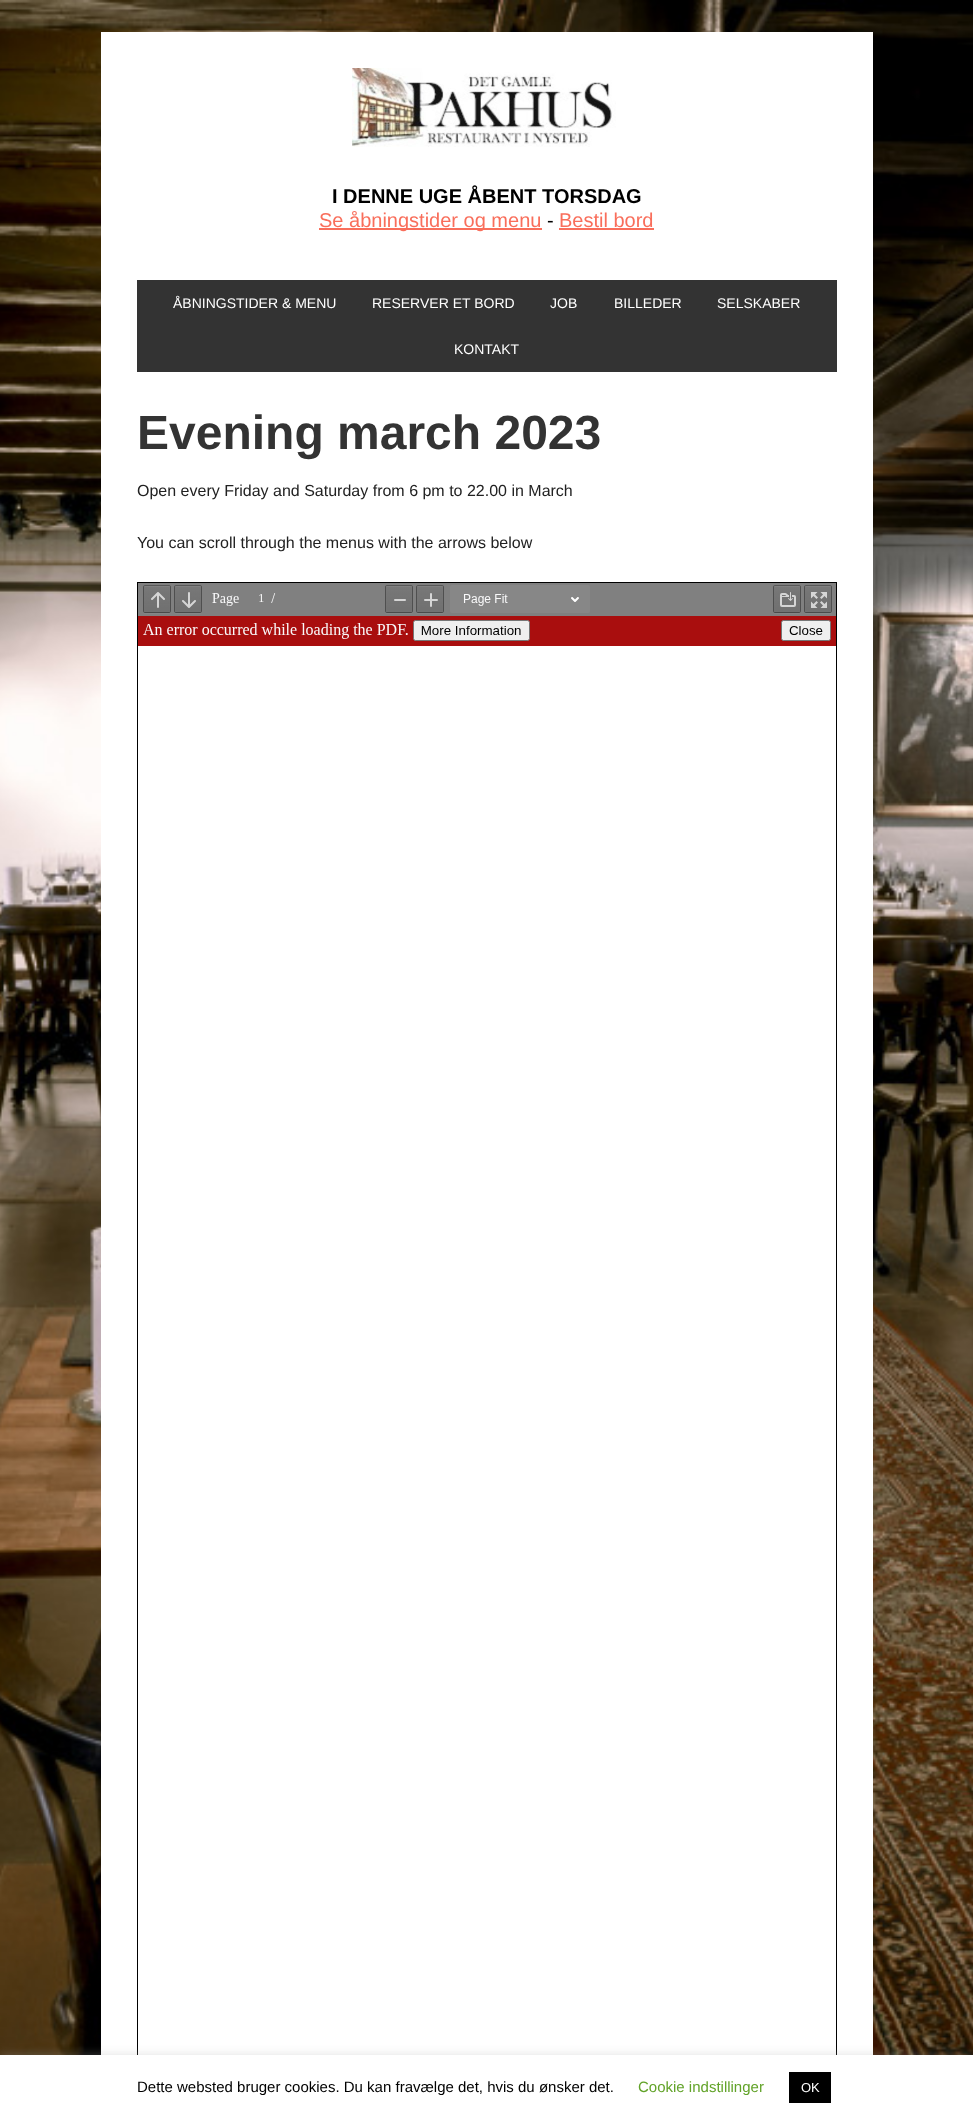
<!DOCTYPE html>
<meta charset="utf-8">
<style>body { margin: 0 } canvas { display: block }</style>
<canvas id="canvas" width="973" height="2120"></canvas>
<script type="module">
  const canvas = document.getElementById("canvas");
  const ctx = canvas.getContext("2d");
  ctx.miterLimit = 4;
  ctx.fontKerning = "normal";
  async function loadImage(src) {
    const img = new Image();
    img.src = src;
    await img.decode();
    return img;
  }

  ctx.fillStyle = "#ffffff";
  ctx.fillRect(0, 0, 973, 2120);
  ctx.drawImage(await loadImage("img1.png"), 0, 0, 973, 2055);
  ctx.fillRect(101, 32, 772, 2023);
  ctx.drawImage(await loadImage("img2.png"), 352, 68, 264, 79);
  ctx.font = "bold 20px Liberation Sans";
  ctx.fillStyle = "#000000";
  ctx.fillText("I DENNE UGE ÅBENT TORSDAG", 332, 203);
  ctx.fillStyle = "#f96e5b";
  ctx.fillRect(319, 228, 223, 2);
  ctx.font = "20px Liberation Sans";
  ctx.fillText("Se åbningstider og menu", 319, 227);
  ctx.fillStyle = "#000000";
  ctx.fillText("-", 547, 227);
  ctx.fillStyle = "#f96e5b";
  ctx.fillText("Bestil bord", 559, 227);
  ctx.fillRect(559, 228, 95, 2);
  ctx.fillStyle = "#333333";
  ctx.fillRect(137, 280, 700, 92);
  ctx.font = "14px Liberation Sans";
  ctx.fillStyle = "#ffffff";
  ctx.fillText("ÅBNINGSTIDER & MENU", 173, 308);
  ctx.fillText("RESERVER ET BORD", 372, 308);
  ctx.fillText("JOB", 550, 308);
  ctx.fillText("BILLEDER", 614, 308);
  ctx.fillText("SELSKABER", 717, 308);
  ctx.fillText("KONTAKT", 454, 354);
  ctx.font = "bold 48px Liberation Sans";
  ctx.fillStyle = "#333333";
  ctx.fillText("Evening march 2023", 137, 449);
  ctx.font = "16px Liberation Sans";
  ctx.fillStyle = "#222222";
  ctx.fillText("Open every Friday and Saturday from 6 pm to 22.00 in March", 137, 496);
  ctx.fillText("You can scroll through the menus with the arrows below", 137, 548);
  ctx.drawImage(await loadImage("img3.png"), 137, 582, 700, 1473);
  ctx.fillStyle = "rgba(172, 171, 171, 0.3)";
  ctx.filter = "blur(5px)";
  ctx.beginPath();
  ctx.rect(0, 2054, 973, 65);
  ctx.fill();
  ctx.filter = "none";
  ctx.fillStyle = "#ffffff";
  ctx.fillRect(0, 2055, 973, 65);
  ctx.font = "15px Liberation Sans";
  ctx.fillStyle = "#000000";
  ctx.fillText("Dette websted bruger cookies. Du kan fravælge det, hvis du ønsker det.", 137, 2092);
  ctx.fillStyle = "#62a329";
  ctx.fillText("Cookie indstillinger", 638, 2092);
  ctx.fillStyle = "#000000";
  ctx.fillRect(789, 2072, 42, 31);
  ctx.font = "13px Liberation Sans";
  ctx.fillStyle = "#ffffff";
  ctx.fillText("OK", 801, 2092);
</script>
